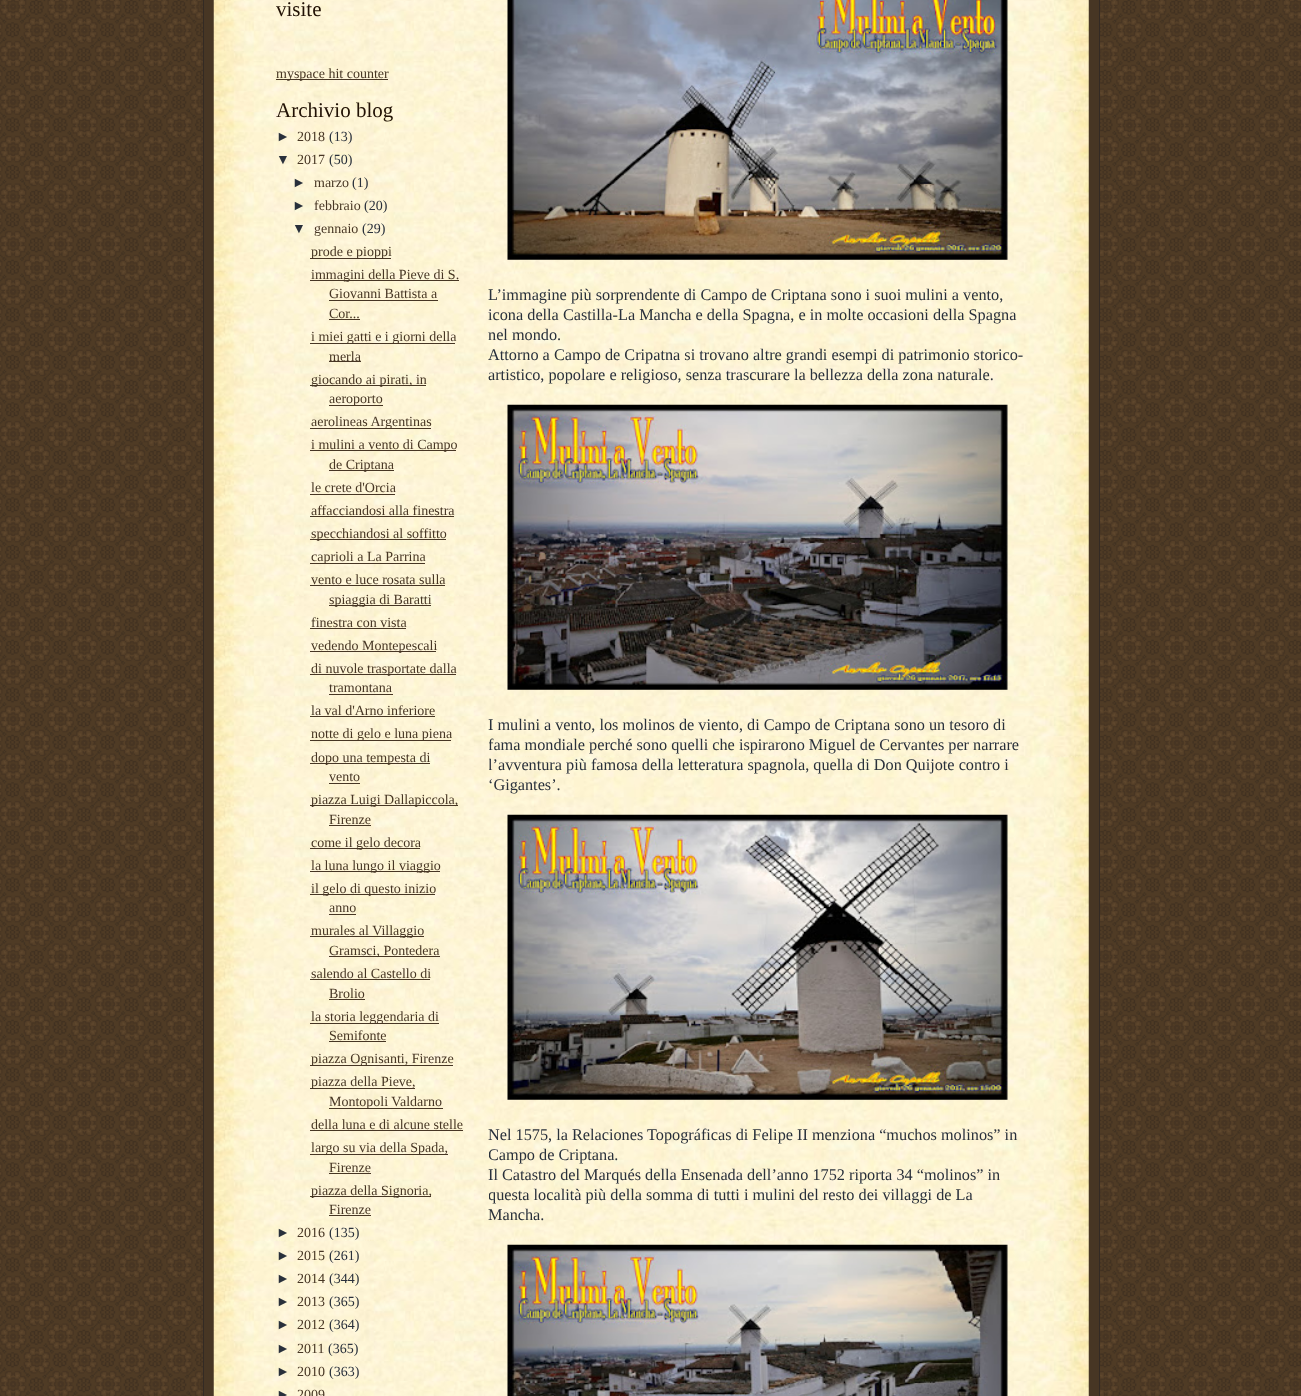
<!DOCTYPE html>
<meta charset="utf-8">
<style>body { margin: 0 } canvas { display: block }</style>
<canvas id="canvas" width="1301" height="1396"></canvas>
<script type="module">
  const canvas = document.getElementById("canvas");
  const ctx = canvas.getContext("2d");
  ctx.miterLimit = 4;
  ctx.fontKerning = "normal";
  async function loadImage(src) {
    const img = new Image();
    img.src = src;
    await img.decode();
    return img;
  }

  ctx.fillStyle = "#ffffff";
  ctx.fillRect(0, 0, 1301, 1396);
  ctx.drawImage(await loadImage("img1.png"), 0, 0, 1301, 1396);
  ctx.fillStyle = "#473624";
  ctx.fillRect(204, 0, 895, 1396);
  ctx.fillStyle = "#332a24";
  ctx.fillRect(1099, 0, 1, 1396);
  ctx.fillRect(203, 0, 1, 1396);
  ctx.drawImage(await loadImage("img2.png"), 213, 0, 876, 1396);
  ctx.font = "21px Liberation Serif";
  ctx.fillStyle = "#211104";
  ctx.fillText("visite", 276, 16);
  ctx.fillStyle = "#473624";
  ctx.fillRect(276, 79, 112, 1);
  ctx.font = "14px Liberation Serif";
  ctx.fillText("myspace hit counter", 276, 78);
  ctx.font = "21px Liberation Serif";
  ctx.fillStyle = "#211104";
  ctx.fillText("Archivio blog", 276, 117);
  ctx.font = "14px Liberation Sans";
  ctx.fillStyle = "#29303b";
  ctx.fillText("►", 276, 141);
  ctx.font = "14px Liberation Serif";
  ctx.fillStyle = "#473624";
  ctx.fillText("2018", 297, 141);
  ctx.fillStyle = "#29303b";
  ctx.fillText("(13)", 329, 141);
  ctx.font = "14px Liberation Sans";
  ctx.fillText("▼", 276, 164);
  ctx.font = "14px Liberation Serif";
  ctx.fillStyle = "#473624";
  ctx.fillText("2017", 297, 164);
  ctx.fillStyle = "#29303b";
  ctx.fillText("(50)", 329, 164);
  ctx.font = "14px Liberation Sans";
  ctx.fillText("►", 292, 187);
  ctx.font = "14px Liberation Serif";
  ctx.fillStyle = "#473624";
  ctx.fillText("marzo", 314, 187);
  ctx.fillStyle = "#29303b";
  ctx.fillText("(1)", 352, 187);
  ctx.font = "14px Liberation Sans";
  ctx.fillText("►", 292, 210);
  ctx.font = "14px Liberation Serif";
  ctx.fillStyle = "#473624";
  ctx.fillText("febbraio", 314, 210);
  ctx.fillStyle = "#29303b";
  ctx.fillText("(20)", 364, 210);
  ctx.font = "14px Liberation Sans";
  ctx.fillText("▼", 292, 233);
  ctx.font = "14px Liberation Serif";
  ctx.fillStyle = "#473624";
  ctx.fillText("gennaio", 314, 233);
  ctx.fillStyle = "#29303b";
  ctx.fillText("(29)", 362, 233);
  ctx.fillStyle = "#473624";
  ctx.fillRect(310, 258, 81, 1);
  ctx.fillText("prode e pioppi", 311, 256);
  ctx.fillRect(310, 280, 149, 1);
  ctx.fillText("immagini della Pieve di S.", 311, 279);
  ctx.fillText("Giovanni Battista a", 329, 298);
  ctx.fillRect(329, 300, 109, 1);
  ctx.fillText("Cor...", 329, 318);
  ctx.fillRect(329, 319, 31, 1);
  ctx.fillRect(310, 343, 145, 1);
  ctx.fillText("i miei gatti e i giorni della", 311, 341);
  ctx.fillRect(329, 361, 32, 1);
  ctx.fillText("merla", 329, 361);
  ctx.fillRect(310, 385, 116, 1);
  ctx.fillText("giocando ai pirati, in", 311, 384);
  ctx.fillRect(329, 405, 54, 1);
  ctx.fillText("aeroporto", 329, 403);
  ctx.fillRect(310, 428, 121, 1);
  ctx.fillText("aerolineas Argentinas", 311, 426);
  ctx.fillRect(310, 450, 146, 1);
  ctx.fillText("i mulini a vento di Campo", 311, 449);
  ctx.fillRect(329, 470, 65, 1);
  ctx.fillText("de Criptana", 329, 469);
  ctx.fillText("le crete d'Orcia", 311, 492);
  ctx.fillRect(310, 494, 85, 1);
  ctx.fillText("affacciandosi alla finestra", 311, 515);
  ctx.fillRect(310, 516, 144, 1);
  ctx.fillRect(310, 539, 136, 1);
  ctx.fillText("specchiandosi al soffitto", 311, 538);
  ctx.fillRect(310, 563, 115, 1);
  ctx.fillText("caprioli a La Parrina", 311, 561);
  ctx.fillText("vento e luce rosata sulla", 311, 584);
  ctx.fillRect(310, 585, 135, 1);
  ctx.fillRect(329, 605, 102, 1);
  ctx.fillText("spiaggia di Baratti", 329, 604);
  ctx.fillText("finestra con vista", 311, 627);
  ctx.fillRect(310, 628, 96, 1);
  ctx.fillRect(310, 651, 126, 1);
  ctx.fillText("vedendo Montepescali", 311, 650);
  ctx.fillRect(310, 674, 146, 1);
  ctx.fillText("di nuvole trasportate dalla", 311, 673);
  ctx.fillText("tramontana", 329, 692);
  ctx.fillRect(329, 694, 64, 1);
  ctx.fillText("la val d'Arno inferiore", 311, 715);
  ctx.fillRect(310, 716, 125, 1);
  ctx.fillRect(310, 740, 141, 1);
  ctx.fillText("notte di gelo e luna piena", 311, 738);
  ctx.fillRect(310, 763, 120, 1);
  ctx.fillText("dopo una tempesta di", 311, 762);
  ctx.fillText("vento", 329, 781);
  ctx.fillRect(329, 783, 31, 1);
  ctx.fillRect(310, 805, 148, 1);
  ctx.fillText("piazza Luigi Dallapiccola,", 311, 804);
  ctx.fillText("Firenze", 329, 824);
  ctx.fillRect(329, 825, 42, 1);
  ctx.fillRect(310, 848, 110, 1);
  ctx.fillText("come il gelo decora", 311, 847);
  ctx.fillRect(310, 871, 130, 1);
  ctx.fillText("la luna lungo il viaggio", 311, 870);
  ctx.fillRect(310, 894, 125, 1);
  ctx.fillText("il gelo di questo inizio", 311, 893);
  ctx.fillText("anno", 329, 912);
  ctx.fillRect(329, 914, 27, 1);
  ctx.fillRect(310, 936, 114, 1);
  ctx.fillText("murales al Villaggio", 311, 935);
  ctx.fillRect(329, 956, 111, 1);
  ctx.fillText("Gramsci, Pontedera", 329, 955);
  ctx.fillText("salendo al Castello di", 311, 978);
  ctx.fillRect(310, 979, 120, 1);
  ctx.fillText("Brolio", 329, 998);
  ctx.fillRect(329, 999, 36, 1);
  ctx.fillRect(310, 1023, 129, 1);
  ctx.fillText("la storia leggendaria di", 311, 1021);
  ctx.fillText("Semifonte", 329, 1040);
  ctx.fillRect(329, 1041, 57, 1);
  ctx.fillRect(310, 1065, 143, 1);
  ctx.fillText("piazza Ognisanti, Firenze", 311, 1063);
  ctx.fillRect(310, 1088, 105, 1);
  ctx.fillText("piazza della Pieve,", 311, 1086);
  ctx.fillRect(329, 1108, 114, 1);
  ctx.fillText("Montopoli Valdarno", 329, 1106);
  ctx.fillText("della luna e di alcune stelle", 311, 1129);
  ctx.fillRect(310, 1130, 153, 1);
  ctx.fillRect(310, 1154, 138, 1);
  ctx.fillText("largo su via della Spada,", 311, 1152);
  ctx.fillText("Firenze", 329, 1172);
  ctx.fillRect(329, 1173, 42, 1);
  ctx.fillRect(310, 1196, 121, 1);
  ctx.fillText("piazza della Signoria,", 311, 1195);
  ctx.fillText("Firenze", 329, 1214);
  ctx.fillRect(329, 1215, 42, 1);
  ctx.font = "14px Liberation Sans";
  ctx.fillStyle = "#29303b";
  ctx.fillText("►", 276, 1237);
  ctx.font = "14px Liberation Serif";
  ctx.fillStyle = "#473624";
  ctx.fillText("2016", 297, 1237);
  ctx.fillStyle = "#29303b";
  ctx.fillText("(135)", 329, 1237);
  ctx.font = "14px Liberation Sans";
  ctx.fillText("►", 276, 1260);
  ctx.font = "14px Liberation Serif";
  ctx.fillStyle = "#473624";
  ctx.fillText("2015", 297, 1260);
  ctx.fillStyle = "#29303b";
  ctx.fillText("(261)", 329, 1260);
  ctx.font = "14px Liberation Sans";
  ctx.fillText("►", 276, 1283);
  ctx.font = "14px Liberation Serif";
  ctx.fillStyle = "#473624";
  ctx.fillText("2014", 297, 1283);
  ctx.fillStyle = "#29303b";
  ctx.fillText("(344)", 329, 1283);
  ctx.font = "14px Liberation Sans";
  ctx.fillText("►", 276, 1306);
  ctx.font = "14px Liberation Serif";
  ctx.fillStyle = "#473624";
  ctx.fillText("2013", 297, 1306);
  ctx.fillStyle = "#29303b";
  ctx.fillText("(365)", 329, 1306);
  ctx.font = "14px Liberation Sans";
  ctx.fillText("►", 276, 1329);
  ctx.font = "14px Liberation Serif";
  ctx.fillStyle = "#473624";
  ctx.fillText("2012", 297, 1329);
  ctx.fillStyle = "#29303b";
  ctx.fillText("(364)", 329, 1329);
  ctx.font = "14px Liberation Sans";
  ctx.fillText("►", 276, 1353);
  ctx.font = "14px Liberation Serif";
  ctx.fillStyle = "#473624";
  ctx.fillText("2011", 297, 1353);
  ctx.fillStyle = "#29303b";
  ctx.fillText("(365)", 328, 1353);
  ctx.font = "14px Liberation Sans";
  ctx.fillText("►", 276, 1376);
  ctx.font = "14px Liberation Serif";
  ctx.fillStyle = "#473624";
  ctx.fillText("2010", 297, 1376);
  ctx.fillStyle = "#29303b";
  ctx.fillText("(363)", 329, 1376);
  ctx.font = "14px Liberation Sans";
  ctx.fillText("►", 276, 1399);
  ctx.font = "14px Liberation Serif";
  ctx.fillStyle = "#473624";
  ctx.fillText("2009", 297, 1399);
  ctx.drawImage(await loadImage("img3.png"), 507, 0, 501, 260);
  ctx.font = "16.25px Liberation Serif";
  ctx.fillStyle = "#29303b";
  ctx.fillText("L’immagine più sorprendente di Campo de Criptana sono i suoi mulini a vento,", 488, 300);
  ctx.fillText("icona della Castilla-La Mancha e della Spagna, e in molte occasioni della Spagna", 488, 320);
  ctx.fillText("nel mondo.", 488, 340);
  ctx.fillText("Attorno a Campo de Cripatna si trovano altre grandi esempi di patrimonio storico-", 488, 360);
  ctx.fillText("artistico, popolare e religioso, senza trascurare la bellezza della zona naturale.", 488, 380);
  ctx.drawImage(await loadImage("img4.png"), 507, 404, 501, 286);
  ctx.fillText("I mulini a vento, los molinos de viento, di Campo de Criptana sono un tesoro di", 488, 730);
  ctx.save();
  ctx.beginPath();
  ctx.rect(489, 0, 537, 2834);
  ctx.clip();
  ctx.fillText("fama mondiale perché sono quelli che ispirarono Miguel de Cervantes per narrare", 488, 750);
  ctx.fillText("l’avventura più famosa della letteratura spagnola, quella di Don Quijote contro i", 488, 770);
  ctx.restore();
  ctx.fillText("‘Gigantes’.", 488, 790);
  ctx.drawImage(await loadImage("img5.png"), 507, 814, 501, 286);
  ctx.fillText("Nel 1575, la Relaciones Topográficas di Felipe II menziona “muchos molinos” in", 488, 1140);
  ctx.save();
  ctx.beginPath();
  ctx.rect(489, 0, 537, 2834);
  ctx.clip();
  ctx.fillText("Campo de Criptana.", 488, 1160);
  ctx.restore();
  ctx.fillText("Il Catastro del Marqués della Ensenada dell’anno 1752 riporta 34 “molinos” in", 488, 1180);
  ctx.save();
  ctx.beginPath();
  ctx.rect(489, 0, 537, 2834);
  ctx.clip();
  ctx.fillText("questa località più della somma di tutti i mulini del resto dei villaggi de La", 488, 1200);
  ctx.restore();
  ctx.fillText("Mancha.", 488, 1220);
  ctx.drawImage(await loadImage("img6.png"), 507, 1244, 501, 152);
</script>
